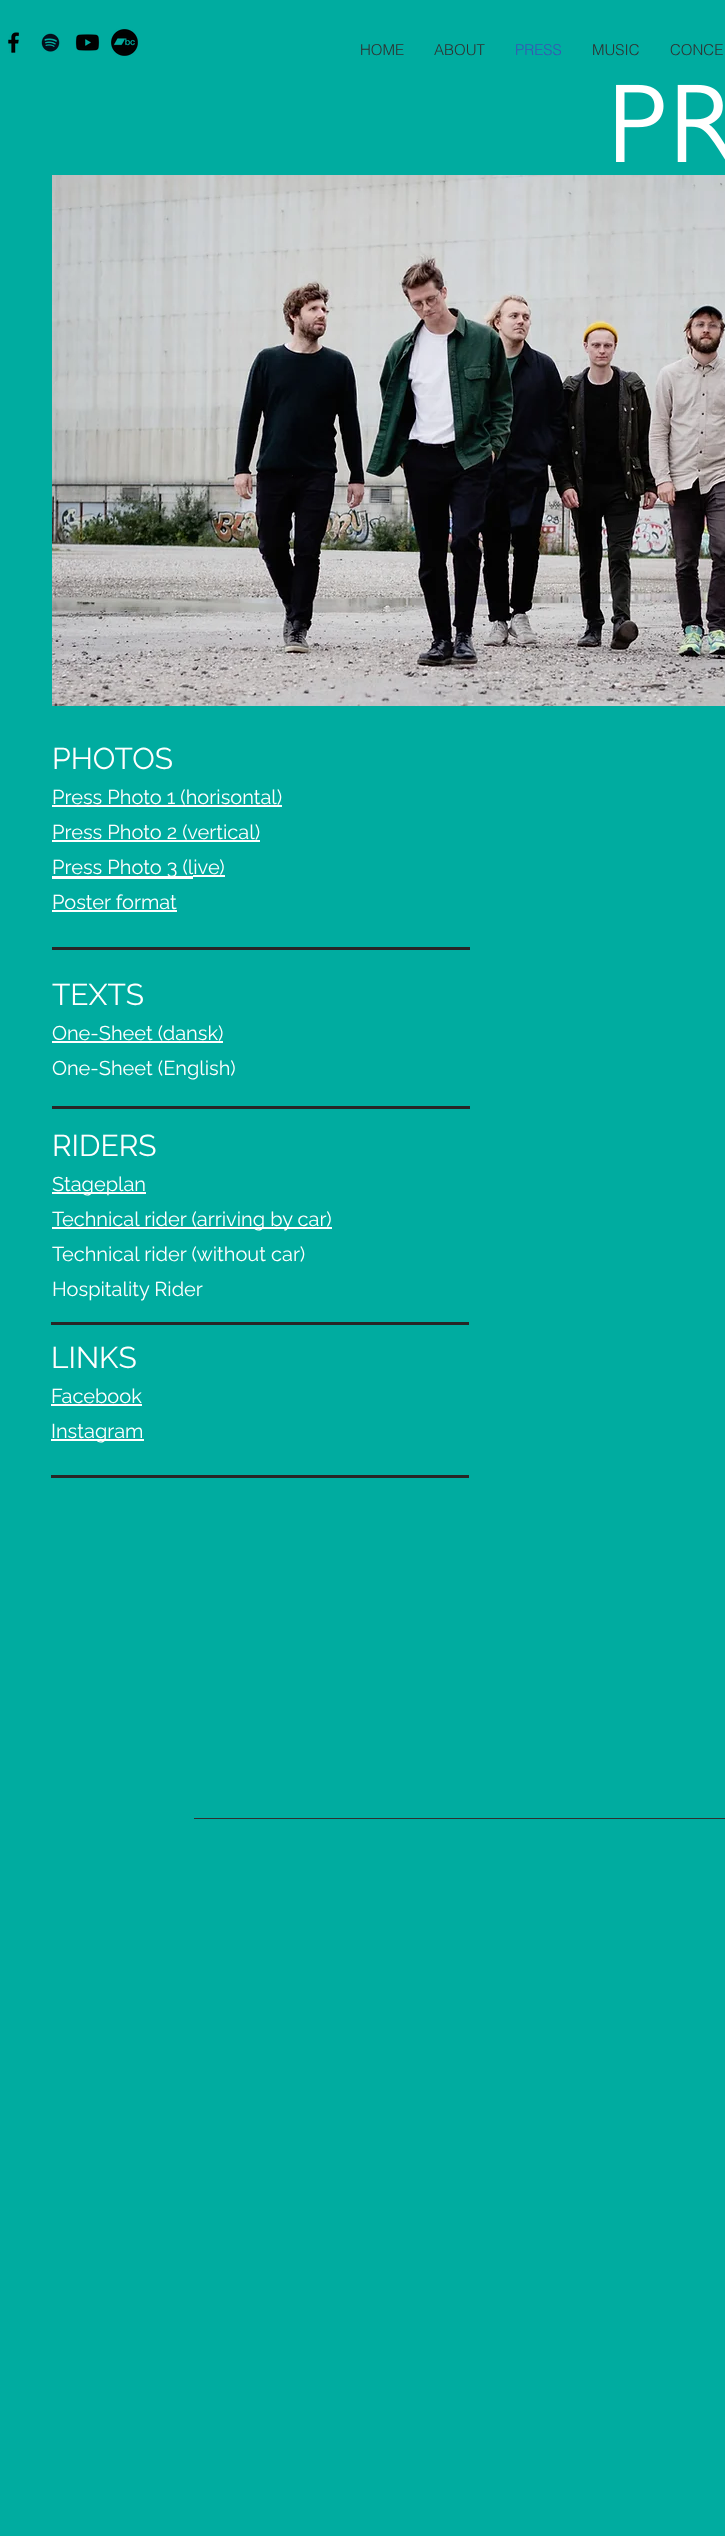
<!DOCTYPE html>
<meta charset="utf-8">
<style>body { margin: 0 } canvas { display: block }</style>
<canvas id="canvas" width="725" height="2536"></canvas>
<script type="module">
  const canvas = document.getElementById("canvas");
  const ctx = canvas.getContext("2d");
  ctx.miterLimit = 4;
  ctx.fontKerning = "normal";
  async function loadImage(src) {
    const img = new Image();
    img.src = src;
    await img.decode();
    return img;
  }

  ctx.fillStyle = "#00aca0";
  ctx.fillRect(0, 0, 725, 2536);
  ctx.drawImage(await loadImage("img1.png"), 8, 32, 11, 21);
  ctx.drawImage(await loadImage("img2.png"), 41, 33, 19, 19);
  ctx.drawImage(await loadImage("img3.png"), 75, 34, 25, 17);
  ctx.drawImage(await loadImage("img4.png"), 111, 29, 27, 27);
  ctx.font = "300 15px helvetica";
  ctx.fillStyle = "#303030";
  ctx.fillText("HOME", 360, 55);
  ctx.fillText("ABOUT", 434, 55);
  ctx.fillStyle = "#3a54b4";
  ctx.fillText("PRESS", 515, 55);
  ctx.fillStyle = "#303030";
  ctx.fillText("MUSIC", 592, 55);
  ctx.fillText("CONCE", 670, 55);
  ctx.drawImage(await loadImage("img5.png"), 616, 84, 109, 78);
  ctx.drawImage(await loadImage("img6.png"), 52, 175, 673, 531);
  ctx.font = "30px Raleway";
  ctx.fillStyle = "#ffffff";
  ctx.fillText("PHOTOS", 52, 769);
  ctx.font = "20px Raleway";
  ctx.fillText("Press Photo 1 (horisontal)", 52, 804);
  ctx.fillRect(52, 805, 230, 2);
  ctx.fillText("Press Photo 2 (vertical)", 52, 839);
  ctx.fillRect(52, 840, 208, 2);
  ctx.fillRect(52, 876, 141, 3);
  ctx.fillText("Press Photo 3 (live)", 52, 874);
  ctx.fillRect(193, 875, 32, 2);
  ctx.fillText("Poster format", 52, 909);
  ctx.fillRect(52, 910, 125, 2);
  ctx.fillStyle = "#282626";
  ctx.fillRect(52, 947, 418, 3);
  ctx.font = "30px Raleway";
  ctx.fillStyle = "#ffffff";
  ctx.fillText("TEXTS", 52, 1005);
  ctx.font = "20px Raleway";
  ctx.fillText("One-Sheet (dansk)", 52, 1040);
  ctx.fillRect(52, 1041, 171, 2);
  ctx.fillText("One-Sheet (English)", 52, 1075);
  ctx.fillStyle = "#282626";
  ctx.fillRect(52, 1106, 418, 3);
  ctx.font = "30px Raleway";
  ctx.fillStyle = "#ffffff";
  ctx.fillText("RIDERS", 52, 1156);
  ctx.fillRect(52, 1192, 94, 2);
  ctx.font = "20px Raleway";
  ctx.fillText("Stageplan", 52, 1191);
  ctx.fillRect(52, 1227, 280, 2);
  ctx.fillText("Technical rider (arriving by car)", 52, 1226);
  ctx.fillText("Technical rider (without car)", 52, 1261);
  ctx.fillText("Hospitality Rider", 52, 1296);
  ctx.fillStyle = "#282626";
  ctx.fillRect(51, 1322, 418, 3);
  ctx.font = "30px Raleway";
  ctx.fillStyle = "#ffffff";
  ctx.fillText("LINKS", 51, 1368);
  ctx.font = "20px Raleway";
  ctx.fillText("Facebook", 51, 1403);
  ctx.fillRect(51, 1404, 91, 2);
  ctx.fillRect(51, 1439, 93, 2);
  ctx.fillText("Instagram", 51, 1438);
  ctx.fillStyle = "#282626";
  ctx.fillRect(51, 1475, 418, 3);
  ctx.fillStyle = "#303030";
  ctx.fillRect(194, 1818, 531, 1);
</script>
